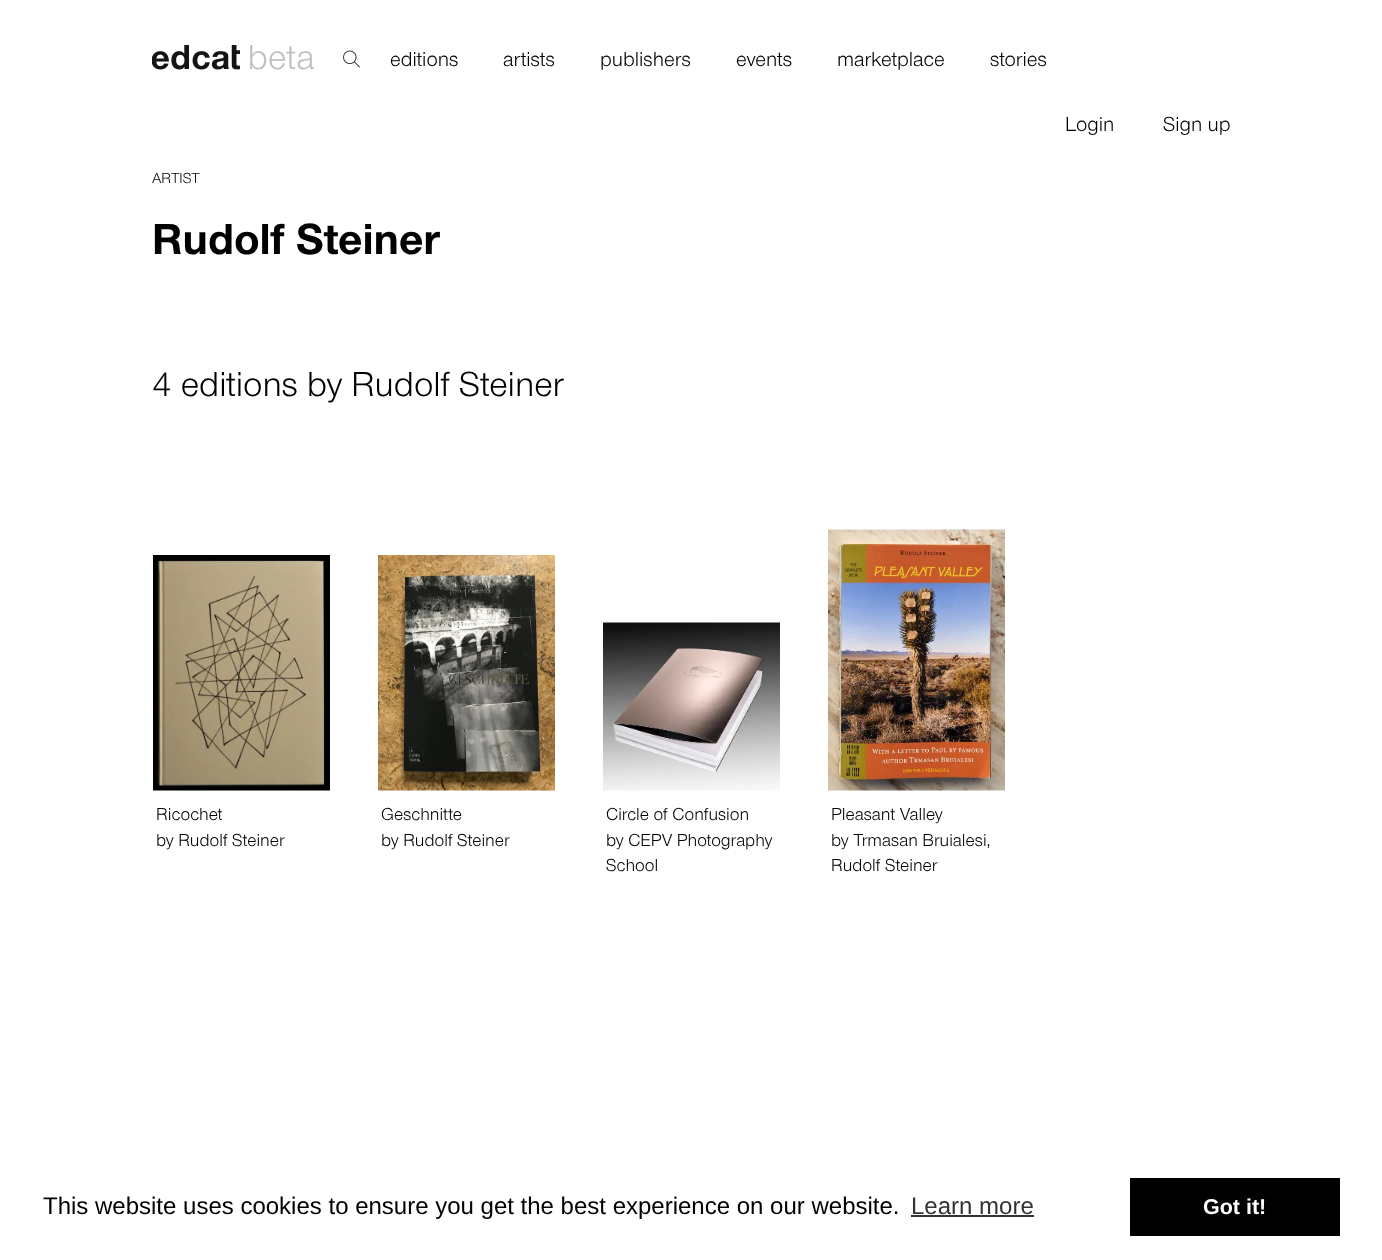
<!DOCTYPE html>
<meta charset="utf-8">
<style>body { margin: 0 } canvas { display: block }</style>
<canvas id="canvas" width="1382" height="1260"></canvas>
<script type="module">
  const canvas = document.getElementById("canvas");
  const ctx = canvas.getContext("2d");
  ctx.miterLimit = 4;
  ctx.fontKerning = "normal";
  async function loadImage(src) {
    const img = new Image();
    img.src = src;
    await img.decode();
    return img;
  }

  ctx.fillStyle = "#ffffff";
  ctx.fillRect(0, 0, 1382, 1260);
  ctx.drawImage(await loadImage("img1.png"), 152, 45, 162, 25);
  ctx.drawImage(await loadImage("img2.png"), 343, 50, 17, 18);
  ctx.font = "21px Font";
  ctx.fillStyle = "#000000";
  ctx.fillText("editions", 390, 66);
  ctx.fillText("artists", 503, 66);
  ctx.fillText("publishers", 600, 66);
  ctx.fillText("events", 736, 66);
  ctx.fillText("marketplace", 837, 66);
  ctx.fillText("stories", 990, 66);
  ctx.fillText("Login", 1065, 131);
  ctx.fillText("Sign up", 1163, 131);
  ctx.font = "15px Font";
  ctx.fillText("ARTIST", 152, 183);
  ctx.font = "bold 45px Font";
  ctx.fillText("Rudolf Steiner", 152, 254);
  ctx.font = "36px Font";
  ctx.fillText("4 editions by Rudolf Steiner", 152, 396);
  ctx.drawImage(await loadImage("img3.png"), 153, 555, 177, 236);
  ctx.font = "18px Font";
  ctx.fillText("Ricochet", 156, 820);
  ctx.fillText("by Rudolf Steiner", 156, 846);
  ctx.drawImage(await loadImage("img4.png"), 378, 555, 177, 236);
  ctx.fillText("Geschnitte", 381, 820);
  ctx.fillText("by Rudolf Steiner", 381, 846);
  ctx.drawImage(await loadImage("img5.png"), 603, 622, 177, 169);
  ctx.fillText("Circle of Confusion", 606, 820);
  ctx.fillText("by CEPV Photography", 606, 846);
  ctx.fillText("School", 606, 871);
  ctx.drawImage(await loadImage("img6.png"), 828, 529, 177, 262);
  ctx.fillText("Pleasant Valley", 831, 820);
  ctx.fillText("by Trmasan Bruialesi,", 831, 846);
  ctx.fillText("Rudolf Steiner", 831, 871);
  ctx.font = "24px Liberation Sans";
  ctx.fillText("This website uses cookies to ensure you get the best experience on our website.", 43, 1214);
  ctx.fillStyle = "#333333";
  ctx.fillText("Learn more", 911, 1214);
  ctx.fillRect(911, 1215, 123, 2);
  ctx.fillStyle = "#000000";
  ctx.fillRect(1130, 1178, 210, 58);
  ctx.font = "bold 21.5px Liberation Sans";
  ctx.fillStyle = "#ffffff";
  ctx.fillText("Got it!", 1203, 1214);
</script>
